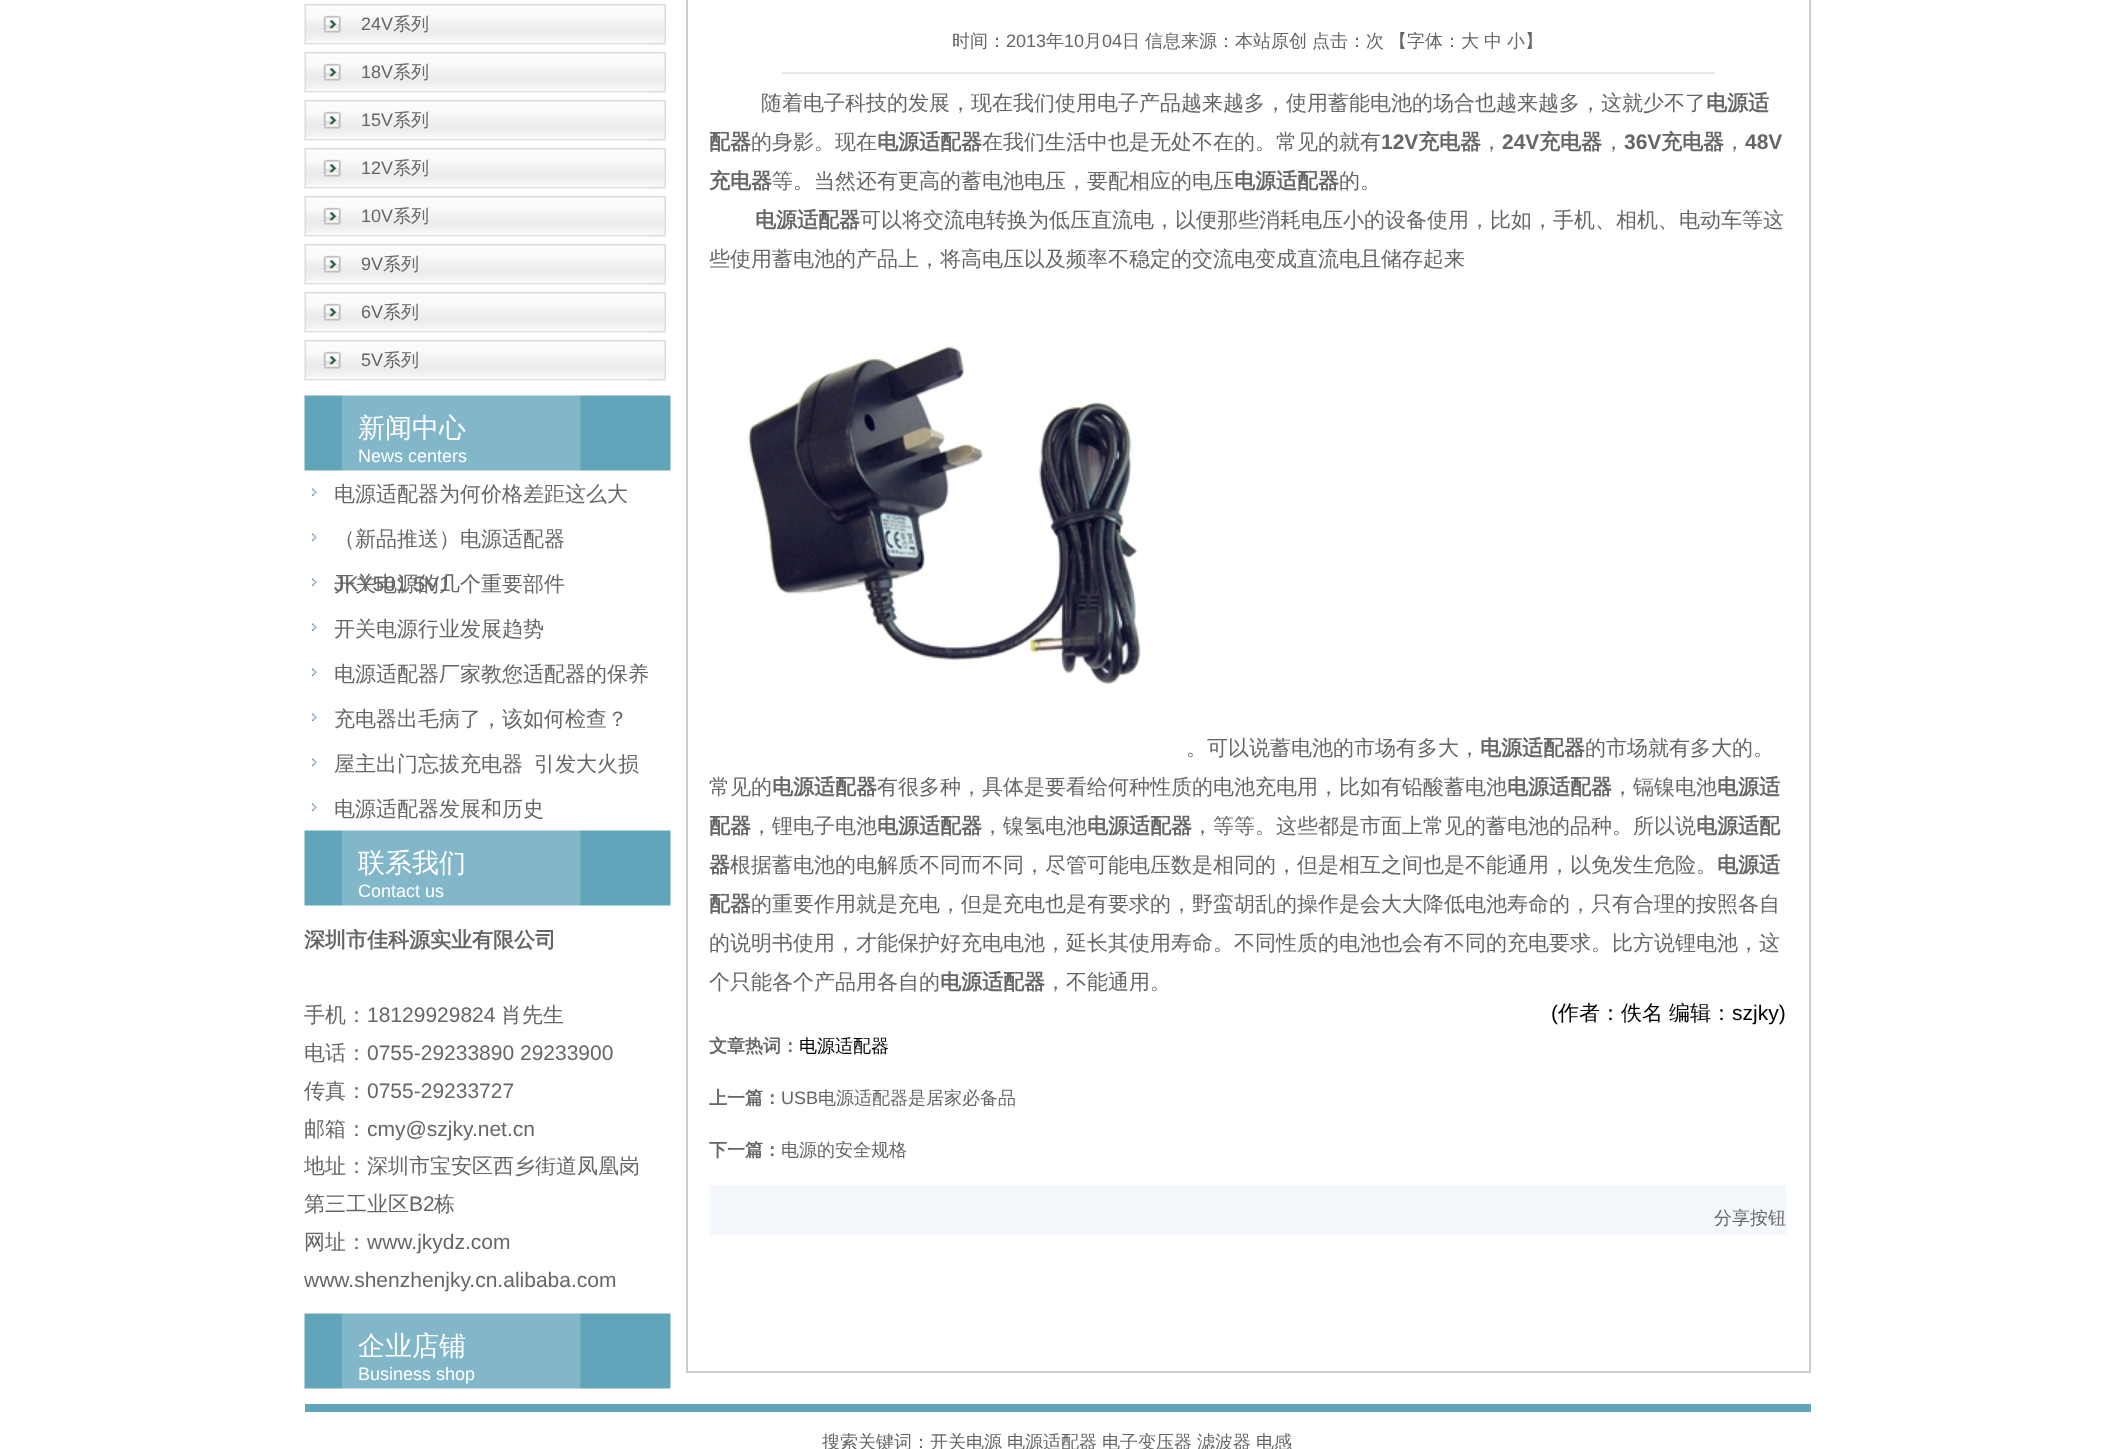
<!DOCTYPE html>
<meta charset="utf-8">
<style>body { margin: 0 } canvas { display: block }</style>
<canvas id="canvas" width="2113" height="1449"></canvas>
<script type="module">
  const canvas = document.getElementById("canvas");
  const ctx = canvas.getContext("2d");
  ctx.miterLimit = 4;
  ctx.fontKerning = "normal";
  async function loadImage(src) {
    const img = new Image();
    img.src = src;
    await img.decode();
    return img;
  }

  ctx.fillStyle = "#ffffff";
  ctx.fillRect(0, 0, 2113, 1449);
  ctx.drawImage(await loadImage("img1.png"), 304, 4, 362, 41);
  ctx.font = "18px Liberation Sans";
  ctx.fillStyle = "#666666";
  ctx.fillText("24V", 361, 30);
  ctx.font = "500 18px WenQuanYi Zen Hei";
  ctx.fillText("系列", 393, 30);
  ctx.drawImage(await loadImage("img1.png"), 304, 52, 362, 41);
  ctx.font = "18px Liberation Sans";
  ctx.fillText("18V", 361, 78);
  ctx.font = "500 18px WenQuanYi Zen Hei";
  ctx.fillText("系列", 393, 78);
  ctx.drawImage(await loadImage("img1.png"), 304, 100, 362, 41);
  ctx.font = "18px Liberation Sans";
  ctx.fillText("15V", 361, 126);
  ctx.font = "500 18px WenQuanYi Zen Hei";
  ctx.fillText("系列", 393, 126);
  ctx.drawImage(await loadImage("img1.png"), 304, 148, 362, 41);
  ctx.font = "18px Liberation Sans";
  ctx.fillText("12V", 361, 174);
  ctx.font = "500 18px WenQuanYi Zen Hei";
  ctx.fillText("系列", 393, 174);
  ctx.drawImage(await loadImage("img1.png"), 304, 196, 362, 41);
  ctx.font = "18px Liberation Sans";
  ctx.fillText("10V", 361, 222);
  ctx.font = "500 18px WenQuanYi Zen Hei";
  ctx.fillText("系列", 393, 222);
  ctx.drawImage(await loadImage("img1.png"), 304, 244, 362, 41);
  ctx.font = "18px Liberation Sans";
  ctx.fillText("9V", 361, 270);
  ctx.font = "500 18px WenQuanYi Zen Hei";
  ctx.fillText("系列", 383, 270);
  ctx.drawImage(await loadImage("img1.png"), 304, 292, 362, 41);
  ctx.font = "18px Liberation Sans";
  ctx.fillText("6V", 361, 318);
  ctx.font = "500 18px WenQuanYi Zen Hei";
  ctx.fillText("系列", 383, 318);
  ctx.drawImage(await loadImage("img1.png"), 304, 340, 362, 41);
  ctx.font = "18px Liberation Sans";
  ctx.fillText("5V", 361, 366);
  ctx.font = "500 18px WenQuanYi Zen Hei";
  ctx.fillText("系列", 383, 366);
  ctx.drawImage(await loadImage("img2.png"), 304, 395, 367, 76);
  ctx.font = "500 27px WenQuanYi Zen Hei";
  ctx.fillStyle = "#ffffff";
  ctx.fillText("新闻中心", 358, 437);
  ctx.font = "18px Liberation Sans";
  ctx.fillText("News centers", 358, 462);
  ctx.drawImage(await loadImage("img3.png"), 312, 488, 5, 8);
  ctx.font = "500 21px WenQuanYi Zen Hei";
  ctx.fillStyle = "#666666";
  ctx.fillText("电源适配器为何价格差距这么大", 334, 501);
  ctx.drawImage(await loadImage("img3.png"), 312, 533, 5, 8);
  ctx.fillText("（新品推送）电源适配器", 334, 546);
  ctx.font = "21px Liberation Sans";
  ctx.fillText("JKY501 5V1", 334, 591);
  ctx.drawImage(await loadImage("img3.png"), 312, 578, 5, 8);
  ctx.font = "500 21px WenQuanYi Zen Hei";
  ctx.fillText("开关电源的几个重要部件", 334, 591);
  ctx.drawImage(await loadImage("img3.png"), 312, 623, 5, 8);
  ctx.fillText("开关电源行业发展趋势", 334, 636);
  ctx.drawImage(await loadImage("img3.png"), 312, 668, 5, 8);
  ctx.fillText("电源适配器厂家教您适配器的保养", 334, 681);
  ctx.drawImage(await loadImage("img3.png"), 312, 713, 5, 8);
  ctx.fillText("充电器出毛病了，该如何检查？", 334, 726);
  ctx.drawImage(await loadImage("img3.png"), 312, 758, 5, 8);
  ctx.fillText("屋主出门忘拔充电器", 334, 771);
  ctx.fillText("引发大火损", 534, 771);
  ctx.drawImage(await loadImage("img3.png"), 312, 803, 5, 8);
  ctx.fillText("电源适配器发展和历史", 334, 816);
  ctx.drawImage(await loadImage("img2.png"), 304, 830, 367, 76);
  ctx.font = "500 27px WenQuanYi Zen Hei";
  ctx.fillStyle = "#ffffff";
  ctx.fillText("联系我们", 358, 872);
  ctx.font = "18px Liberation Sans";
  ctx.fillText("Contact us", 358, 897);
  ctx.font = "bold 21px WenQuanYi Zen Hei";
  ctx.fillStyle = "#666666";
  ctx.fillText("深圳市佳科源实业有限公司", 304, 947);
  ctx.font = "500 21px WenQuanYi Zen Hei";
  ctx.fillText("手机：", 304, 1022);
  ctx.font = "21px Liberation Sans";
  ctx.fillText("18129929824", 367, 1022);
  ctx.font = "500 21px WenQuanYi Zen Hei";
  ctx.fillText("肖先生", 501, 1022);
  ctx.fillText("电话：", 304, 1060);
  ctx.font = "21px Liberation Sans";
  ctx.fillText("0755-29233890 29233900", 367, 1060);
  ctx.font = "500 21px WenQuanYi Zen Hei";
  ctx.fillText("传真：", 304, 1098);
  ctx.font = "21px Liberation Sans";
  ctx.fillText("0755-29233727", 367, 1098);
  ctx.font = "500 21px WenQuanYi Zen Hei";
  ctx.fillText("邮箱：", 304, 1136);
  ctx.font = "21px Liberation Sans";
  ctx.fillText("cmy@szjky.net.cn", 367, 1136);
  ctx.font = "500 21px WenQuanYi Zen Hei";
  ctx.fillText("地址：深圳市宝安区西乡街道凤凰岗", 304, 1173);
  ctx.fillText("第三工业区", 304, 1211);
  ctx.font = "21px Liberation Sans";
  ctx.fillText("B2", 409, 1211);
  ctx.font = "500 21px WenQuanYi Zen Hei";
  ctx.fillText("栋", 434, 1211);
  ctx.fillText("网址：", 304, 1249);
  ctx.font = "21px Liberation Sans";
  ctx.fillText("www.jkydz.com", 367, 1249);
  ctx.fillText("www.shenzhenjky.cn.alibaba.com", 304, 1287);
  ctx.drawImage(await loadImage("img2.png"), 304, 1313, 367, 76);
  ctx.font = "500 27px WenQuanYi Zen Hei";
  ctx.fillStyle = "#ffffff";
  ctx.fillText("企业店铺", 358, 1355);
  ctx.font = "18px Liberation Sans";
  ctx.fillText("Business shop", 358, 1380);
  ctx.strokeStyle = "#cccccc";
  ctx.lineWidth = 2;
  ctx.strokeRect(687, -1, 1123, 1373);
  ctx.font = "500 18px WenQuanYi Zen Hei";
  ctx.fillStyle = "#666666";
  ctx.fillText("时间：", 952, 47);
  ctx.font = "18px Liberation Sans";
  ctx.fillText("2013", 1006, 47);
  ctx.font = "500 18px WenQuanYi Zen Hei";
  ctx.fillText("年", 1046, 47);
  ctx.font = "18px Liberation Sans";
  ctx.fillText("10", 1064, 47);
  ctx.font = "500 18px WenQuanYi Zen Hei";
  ctx.fillText("月", 1084, 47);
  ctx.font = "18px Liberation Sans";
  ctx.fillText("04", 1102, 47);
  ctx.font = "500 18px WenQuanYi Zen Hei";
  ctx.fillText("日", 1122, 47);
  ctx.fillText("信息来源：本站原创", 1145, 47);
  ctx.fillText("点击：次", 1312, 47);
  ctx.fillText("【字体：大", 1389, 47);
  ctx.fillText("中", 1484, 47);
  ctx.fillText("小】", 1507, 47);
  ctx.fillStyle = "#e8e8e8";
  ctx.fillRect(782, 72, 933, 2);
  ctx.font = "500 21px WenQuanYi Zen Hei";
  ctx.fillStyle = "#666666";
  ctx.fillText("随着电子科技的发展，现在我们使用电子产品越来越多，使用蓄能电池的场合也越来越多，这就少不了", 761, 110);
  ctx.font = "bold 21px WenQuanYi Zen Hei";
  ctx.fillText("电源适", 1706, 110);
  ctx.fillText("配器", 709, 149);
  ctx.font = "500 21px WenQuanYi Zen Hei";
  ctx.fillText("的身影。现在", 751, 149);
  ctx.font = "bold 21px WenQuanYi Zen Hei";
  ctx.fillText("电源适配器", 877, 149);
  ctx.font = "500 21px WenQuanYi Zen Hei";
  ctx.fillText("在我们生活中也是无处不在的。常见的就有", 982, 149);
  ctx.font = "bold 21px Liberation Sans";
  ctx.fillText("12V", 1381, 149);
  ctx.font = "bold 21px WenQuanYi Zen Hei";
  ctx.fillText("充电器", 1418, 149);
  ctx.font = "500 21px WenQuanYi Zen Hei";
  ctx.fillText("，", 1481, 149);
  ctx.font = "bold 21px Liberation Sans";
  ctx.fillText("24V", 1502, 149);
  ctx.font = "bold 21px WenQuanYi Zen Hei";
  ctx.fillText("充电器", 1539, 149);
  ctx.font = "500 21px WenQuanYi Zen Hei";
  ctx.fillText("，", 1603, 149);
  ctx.font = "bold 21px Liberation Sans";
  ctx.fillText("36V", 1624, 149);
  ctx.font = "bold 21px WenQuanYi Zen Hei";
  ctx.fillText("充电器", 1661, 149);
  ctx.font = "500 21px WenQuanYi Zen Hei";
  ctx.fillText("，", 1724, 149);
  ctx.font = "bold 21px Liberation Sans";
  ctx.fillText("48V", 1745, 149);
  ctx.font = "bold 21px WenQuanYi Zen Hei";
  ctx.fillText("充电器", 709, 188);
  ctx.font = "500 21px WenQuanYi Zen Hei";
  ctx.fillText("等。当然还有更高的蓄电池电压，要配相应的电压", 772, 188);
  ctx.font = "bold 21px WenQuanYi Zen Hei";
  ctx.fillText("电源适配器", 1234, 188);
  ctx.font = "500 21px WenQuanYi Zen Hei";
  ctx.fillText("的。", 1339, 188);
  ctx.font = "bold 21px WenQuanYi Zen Hei";
  ctx.fillText("电源适配器", 755, 227);
  ctx.font = "500 21px WenQuanYi Zen Hei";
  ctx.fillText("可以将交流电转换为低压直流电，以便那些消耗电压小的设备使用，比如，手机、相机、电动车等这", 860, 227);
  ctx.fillText("些使用蓄电池的产品上，将高电压以及频率不稳定的交流电变成直流电且储存起来", 709, 266);
  ctx.drawImage(await loadImage("img4.png"), 748, 346, 393, 338);
  ctx.fillText("。可以说蓄电池的市场有多大，", 1186, 755);
  ctx.font = "bold 21px WenQuanYi Zen Hei";
  ctx.fillText("电源适配器", 1480, 755);
  ctx.font = "500 21px WenQuanYi Zen Hei";
  ctx.fillText("的市场就有多大的。", 1585, 755);
  ctx.fillText("常见的", 709, 794);
  ctx.font = "bold 21px WenQuanYi Zen Hei";
  ctx.fillText("电源适配器", 772, 794);
  ctx.font = "500 21px WenQuanYi Zen Hei";
  ctx.fillText("有很多种，具体是要看给何种性质的电池充电用，比如有铅酸蓄电池", 877, 794);
  ctx.font = "bold 21px WenQuanYi Zen Hei";
  ctx.fillText("电源适配器", 1507, 794);
  ctx.font = "500 21px WenQuanYi Zen Hei";
  ctx.fillText("，镉镍电池", 1612, 794);
  ctx.font = "bold 21px WenQuanYi Zen Hei";
  ctx.fillText("电源适", 1717, 794);
  ctx.fillText("配器", 709, 833);
  ctx.font = "500 21px WenQuanYi Zen Hei";
  ctx.fillText("，锂电子电池", 751, 833);
  ctx.font = "bold 21px WenQuanYi Zen Hei";
  ctx.fillText("电源适配器", 877, 833);
  ctx.font = "500 21px WenQuanYi Zen Hei";
  ctx.fillText("，镍氢电池", 982, 833);
  ctx.font = "bold 21px WenQuanYi Zen Hei";
  ctx.fillText("电源适配器", 1087, 833);
  ctx.font = "500 21px WenQuanYi Zen Hei";
  ctx.fillText("，等等。这些都是市面上常见的蓄电池的品种。所以说", 1192, 833);
  ctx.font = "bold 21px WenQuanYi Zen Hei";
  ctx.fillText("电源适配", 1696, 833);
  ctx.fillText("器", 709, 872);
  ctx.font = "500 21px WenQuanYi Zen Hei";
  ctx.fillText("根据蓄电池的电解质不同而不同，尽管可能电压数是相同的，但是相互之间也是不能通用，以免发生危险。", 730, 872);
  ctx.font = "bold 21px WenQuanYi Zen Hei";
  ctx.fillText("电源适", 1717, 872);
  ctx.fillText("配器", 709, 911);
  ctx.font = "500 21px WenQuanYi Zen Hei";
  ctx.fillText("的重要作用就是充电，但是充电也是有要求的，野蛮胡乱的操作是会大大降低电池寿命的，只有合理的按照各自", 751, 911);
  ctx.fillText("的说明书使用，才能保护好充电电池，延长其使用寿命。不同性质的电池也会有不同的充电要求。比方说锂电池，这", 709, 950);
  ctx.fillText("个只能各个产品用各自的", 709, 989);
  ctx.font = "bold 21px WenQuanYi Zen Hei";
  ctx.fillText("电源适配器", 940, 989);
  ctx.font = "500 21px WenQuanYi Zen Hei";
  ctx.fillText("，不能通用。", 1045, 989);
  ctx.font = "21px Liberation Sans";
  ctx.fillStyle = "#000000";
  ctx.fillText("(", 1551, 1020);
  ctx.font = "500 21px WenQuanYi Zen Hei";
  ctx.fillText("作者：佚名", 1558, 1020);
  ctx.fillText("编辑：", 1669, 1020);
  ctx.font = "21px Liberation Sans";
  ctx.fillText("szjky)", 1732, 1020);
  ctx.font = "bold 18px WenQuanYi Zen Hei";
  ctx.fillStyle = "#666666";
  ctx.fillText("文章热词：", 709, 1052);
  ctx.font = "500 18px WenQuanYi Zen Hei";
  ctx.fillStyle = "#000000";
  ctx.fillText("电源适配器", 799, 1052);
  ctx.font = "bold 18px WenQuanYi Zen Hei";
  ctx.fillStyle = "#666666";
  ctx.fillText("上一篇：", 709, 1104);
  ctx.font = "18px Liberation Sans";
  ctx.fillText("USB", 781, 1104);
  ctx.font = "500 18px WenQuanYi Zen Hei";
  ctx.fillText("电源适配器是居家必备品", 818, 1104);
  ctx.font = "bold 18px WenQuanYi Zen Hei";
  ctx.fillText("下一篇：", 709, 1156);
  ctx.font = "500 18px WenQuanYi Zen Hei";
  ctx.fillText("电源的安全规格", 781, 1156);
  ctx.fillStyle = "#f4f8fd";
  ctx.fillRect(710, 1185, 1077, 50);
  ctx.fillStyle = "#666666";
  ctx.fillText("分享按钮", 1714, 1224);
  ctx.fillStyle = "#61a5bb";
  ctx.fillRect(305, 1404, 1506, 8);
  ctx.fillStyle = "#666666";
  ctx.fillText("搜索关键词：开关电源", 822, 1448);
  ctx.fillText("电源适配器", 1007, 1448);
  ctx.fillText("电子变压器", 1102, 1448);
  ctx.fillText("滤波器", 1197, 1448);
  ctx.fillText("电感", 1256, 1448);
</script>
